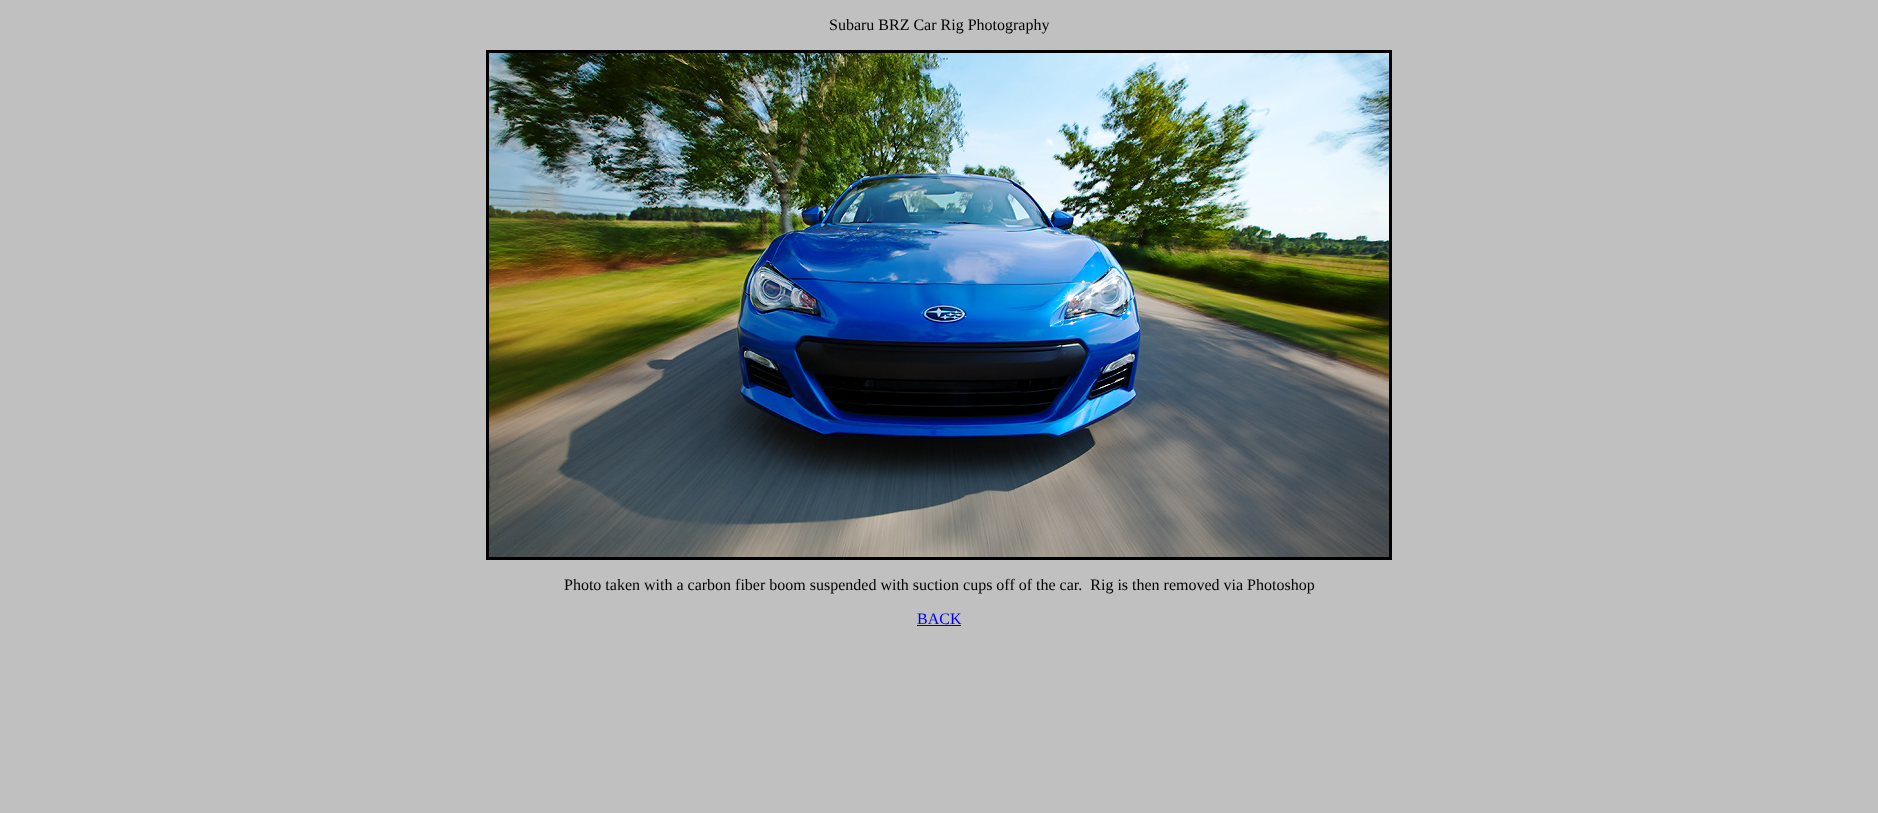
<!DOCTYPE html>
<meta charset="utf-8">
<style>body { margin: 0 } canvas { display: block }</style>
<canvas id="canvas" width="1878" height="813"></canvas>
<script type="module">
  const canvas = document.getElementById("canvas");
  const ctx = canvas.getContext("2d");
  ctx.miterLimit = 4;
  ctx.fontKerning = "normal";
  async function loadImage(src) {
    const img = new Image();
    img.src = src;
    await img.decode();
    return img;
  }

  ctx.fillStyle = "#c0c0c0";
  ctx.fillRect(0, 0, 1878, 813);
  ctx.font = "16px Liberation Serif";
  ctx.fillStyle = "#000000";
  ctx.fillText("Subaru BRZ Car Rig Photography", 829, 30);
  ctx.drawImage(await loadImage("img1.png"), 486, 50, 906, 510);
  ctx.fillText("Photo taken with a carbon fiber boom suspended with suction cups off of the car.  Rig is then removed via Photoshop", 564, 590);
  ctx.fillStyle = "#0000ee";
  ctx.fillText("BACK", 917, 624);
  ctx.fillRect(917, 625, 44, 1);
</script>
